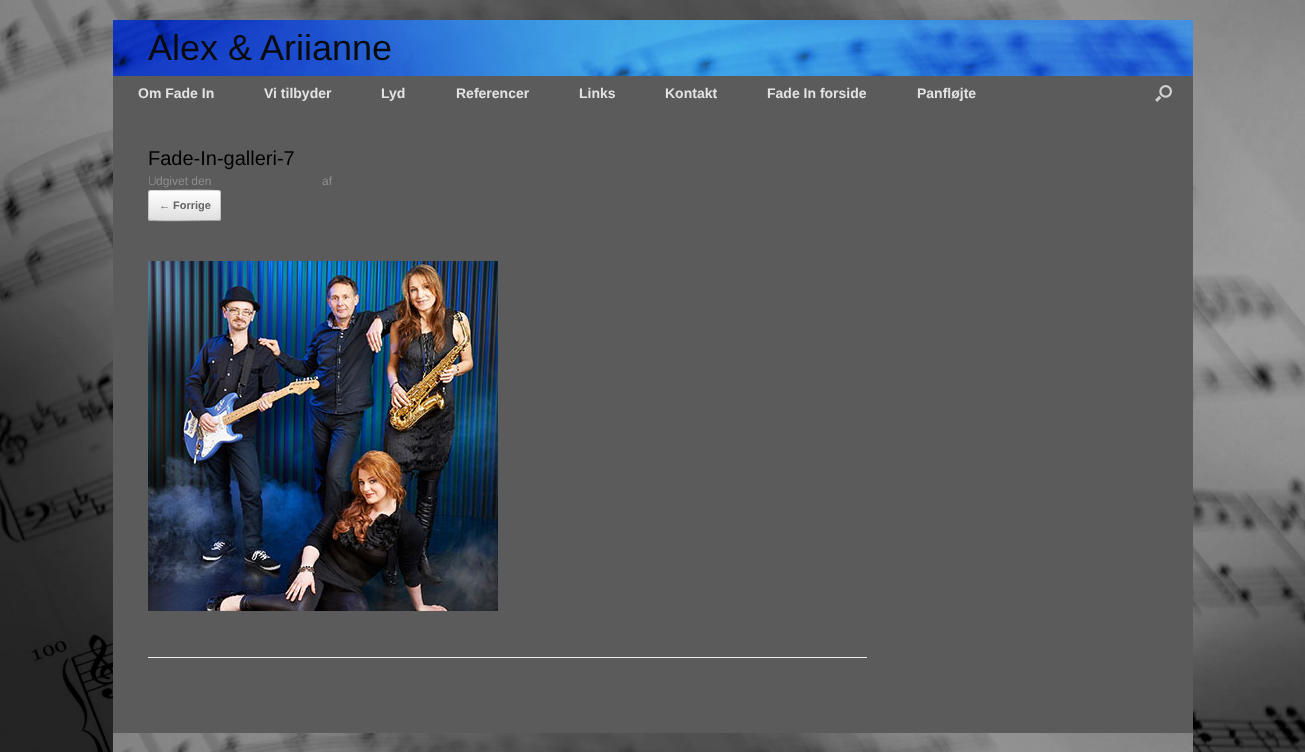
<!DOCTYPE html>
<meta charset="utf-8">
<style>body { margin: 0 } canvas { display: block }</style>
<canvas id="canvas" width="1305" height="752"></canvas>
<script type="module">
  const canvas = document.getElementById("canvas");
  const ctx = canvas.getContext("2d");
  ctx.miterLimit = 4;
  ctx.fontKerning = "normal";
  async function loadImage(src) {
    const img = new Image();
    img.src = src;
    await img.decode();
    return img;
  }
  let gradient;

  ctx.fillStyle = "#ffffff";
  ctx.fillRect(0, 0, 1305, 752);
  ctx.drawImage(await loadImage("img1.png"), 0, 0, 1305, 752);
  ctx.drawImage(await loadImage("img2.png"), 113, 20, 1080, 56);
  ctx.font = "36px Liberation Sans";
  ctx.fillStyle = "#0a0a0a";
  ctx.fillText("Alex & Ariianne", 148, 60);
  ctx.fillStyle = "#5b5b5b";
  ctx.fillRect(113, 76, 1080, 657);
  ctx.font = "bold 14px Liberation Sans";
  ctx.fillStyle = "#e2e2e2";
  ctx.fillText("Om Fade In", 138, 98);
  ctx.fillText("Vi tilbyder", 264, 98);
  ctx.fillText("Lyd", 381, 98);
  ctx.fillText("Referencer", 456, 98);
  ctx.fillText("Links", 579, 98);
  ctx.fillText("Kontakt", 665, 98);
  ctx.fillText("Fade In forside", 767, 98);
  ctx.fillText("Panfløjte", 917, 98);
  ctx.drawImage(await loadImage("img3.png"), 1155, 85, 17, 17);
  ctx.fillStyle = "#eeeeee";
  ctx.fillRect(148, 657, 719, 1);
  ctx.font = "20px Liberation Sans";
  ctx.fillStyle = "#000000";
  ctx.fillText("Fade-In-galleri-7", 148, 165);
  ctx.font = "300 12px Noto Sans";
  ctx.fillStyle = "#8f8f8f";
  ctx.fillText("U", 148, 185);
  ctx.font = "12px Liberation Sans";
  ctx.fillText("dgivet den", 156, 185);
  ctx.fillText("af", 322, 185);
  ctx.save();
  ctx.beginPath();
  ctx.roundRect(148, 190, 73, 31, 3);
  ctx.clip();
  gradient = ctx.createLinearGradient(149, 191, 149, 162);
  gradient.addColorStop(0, "#dfdfdf");
  gradient.addColorStop(1, "#ffffff");
  ctx.fillStyle = gradient;
  ctx.fillRect(148, 190, 73, 1);
  gradient = ctx.createLinearGradient(149, 220, 149, 191);
  gradient.addColorStop(0, "#dfdfdf");
  gradient.addColorStop(1, "#ffffff");
  ctx.fillStyle = gradient;
  ctx.fillRect(148, 191, 73, 29);
  gradient = ctx.createLinearGradient(149, 249, 149, 220);
  gradient.addColorStop(0, "#dfdfdf");
  gradient.addColorStop(1, "#ffffff");
  ctx.fillStyle = gradient;
  ctx.fillRect(148, 220, 73, 1);
  ctx.restore();
  ctx.beginPath();
  ctx.moveTo(149, 191);
  ctx.lineTo(151, 190.5);
  ctx.lineTo(162, 190.5);
  ctx.bezierCurveTo(168.5, 190.5, 217.5, 189.5, 219.5, 191);
  ctx.lineTo(220, 191);
  ctx.strokeStyle = "#d2d2d2";
  ctx.stroke();
  ctx.beginPath();
  ctx.moveTo(220, 191);
  ctx.bezierCurveTo(220, 191.5, 220.5, 192.5, 220.5, 193);
  ctx.lineTo(220.5, 218);
  ctx.bezierCurveTo(220.5, 218.5, 220, 219.5, 220, 220);
  ctx.strokeStyle = "#c3c3c3";
  ctx.stroke();
  ctx.beginPath();
  ctx.moveTo(220, 220);
  ctx.lineTo(218, 220.5);
  ctx.lineTo(207, 220.5);
  ctx.bezierCurveTo(200.5, 220.5, 151.5, 221.5, 149.5, 220);
  ctx.lineTo(149, 220);
  ctx.strokeStyle = "#9f9f9f";
  ctx.stroke();
  ctx.beginPath();
  ctx.moveTo(149, 220);
  ctx.bezierCurveTo(149, 219.5, 148.5, 218.5, 148.5, 218);
  ctx.lineTo(148.5, 193);
  ctx.bezierCurveTo(148.5, 192.5, 149, 191.5, 149, 191);
  ctx.strokeStyle = "#c3c3c3";
  ctx.stroke();
  ctx.font = "bold 11px Liberation Sans";
  ctx.fillStyle = "#646464";
  ctx.fillText("← Forrige", 159, 209);
  ctx.drawImage(await loadImage("img4.png"), 148, 261, 350, 350);
  ctx.drawImage(await loadImage("img5.png"), 113, 733, 1080, 19);
</script>
